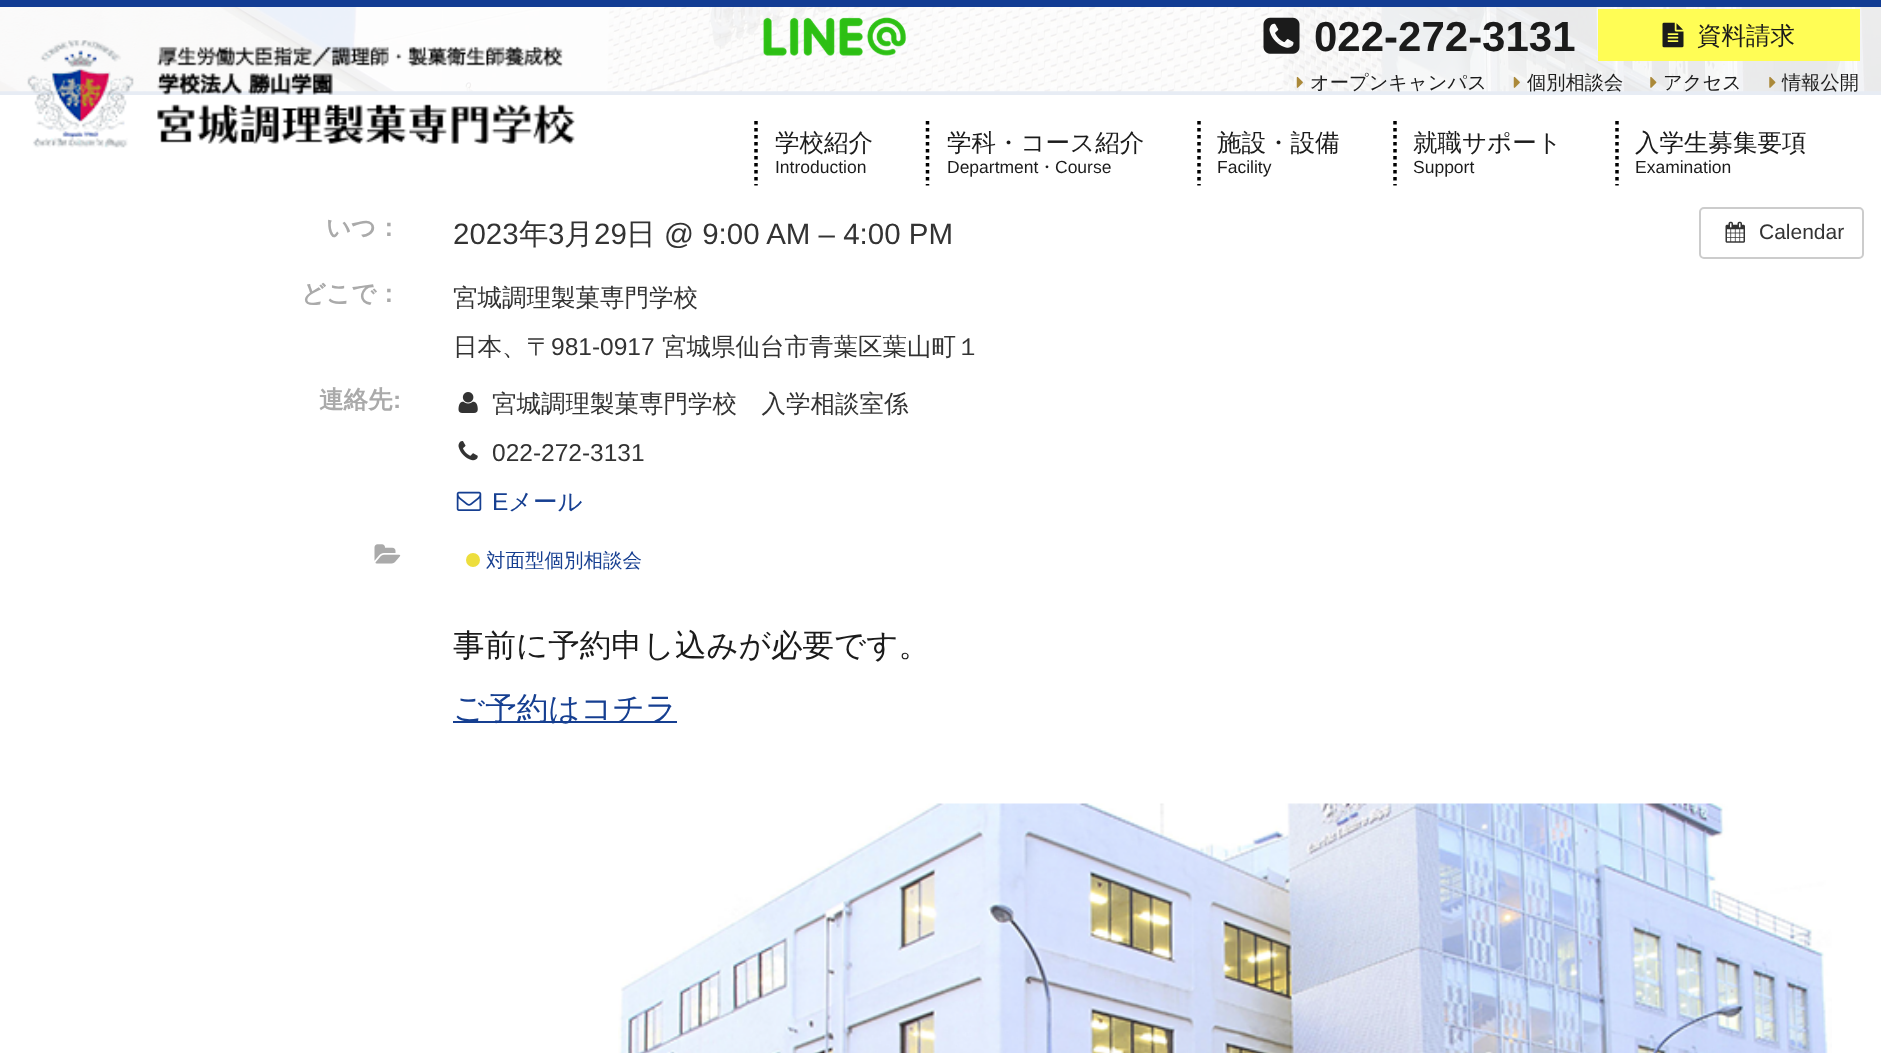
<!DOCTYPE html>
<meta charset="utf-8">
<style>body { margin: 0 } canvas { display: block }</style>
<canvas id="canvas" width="1881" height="1053"></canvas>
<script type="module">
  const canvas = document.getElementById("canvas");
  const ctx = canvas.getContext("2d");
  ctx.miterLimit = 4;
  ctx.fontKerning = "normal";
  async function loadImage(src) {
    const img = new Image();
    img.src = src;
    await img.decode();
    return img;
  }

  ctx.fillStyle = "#ffffff";
  ctx.fillRect(0, 0, 1881, 1053);
  ctx.fillStyle = "#e7ecf4";
  ctx.fillRect(0, 91, 1881, 4);
  ctx.drawImage(await loadImage("img1.png"), 0, 7, 1881, 85);
  ctx.fillStyle = "#123c93";
  ctx.fillRect(0, 0, 1881, 7);
  ctx.drawImage(await loadImage("img2.png"), 27, 40, 548, 108);
  ctx.drawImage(await loadImage("img3.png"), 763, 17, 143, 39);
  ctx.drawImage(await loadImage("img4.png"), 1263, 17, 37, 37);
  ctx.font = "bold 42px Liberation Sans";
  ctx.fillStyle = "#1b1b1b";
  ctx.fillText("022-272-3131", 1314, 51);
  ctx.fillStyle = "#fffd55";
  ctx.fillRect(1598, 9, 262, 52);
  ctx.drawImage(await loadImage("img5.png"), 1662, 22, 22, 26);
  ctx.font = "500 24.5px WenQuanYi Zen Hei";
  ctx.fillStyle = "#1b1b1b";
  ctx.fillText("資料請求", 1697, 44);
  ctx.drawImage(await loadImage("img6.png"), 1296, 76, 7, 12);
  ctx.font = "500 19.25px WenQuanYi Zen Hei";
  ctx.fillText("オープンキャンパス", 1310, 89);
  ctx.drawImage(await loadImage("img7.png"), 1513, 76, 7, 12);
  ctx.fillText("個別相談会", 1527, 89);
  ctx.drawImage(await loadImage("img8.png"), 1650, 76, 7, 12);
  ctx.fillText("アクセス", 1663, 89);
  ctx.drawImage(await loadImage("img9.png"), 1769, 76, 7, 12);
  ctx.fillText("情報公開", 1782, 89);
  ctx.beginPath();
  ctx.moveTo(756, 121);
  ctx.lineTo(756, 185.5);
  ctx.strokeStyle = "#000000";
  ctx.lineWidth = 3.5;
  ctx.setLineDash([3.5, 3.5]);
  ctx.stroke();
  ctx.font = "500 24.5px WenQuanYi Zen Hei";
  ctx.fillText("学校紹介", 775, 151);
  ctx.font = "17.5px Liberation Sans";
  ctx.fillText("Introduction", 775, 173);
  ctx.beginPath();
  ctx.moveTo(927.5, 121);
  ctx.lineTo(927.5, 185.5);
  ctx.stroke();
  ctx.font = "500 24.5px WenQuanYi Zen Hei";
  ctx.fillText("学科・コース紹介", 947, 151);
  ctx.font = "17.5px Liberation Sans";
  ctx.fillText("Department", 947, 173);
  ctx.font = "500 17.5px WenQuanYi Zen Hei";
  ctx.fillText("・", 1038, 173);
  ctx.font = "17.5px Liberation Sans";
  ctx.fillText("Course", 1055, 173);
  ctx.beginPath();
  ctx.moveTo(1199, 121);
  ctx.lineTo(1199, 185.5);
  ctx.stroke();
  ctx.font = "500 24.5px WenQuanYi Zen Hei";
  ctx.fillText("施設・設備", 1217, 151);
  ctx.font = "17.5px Liberation Sans";
  ctx.fillText("Facility", 1217, 173);
  ctx.beginPath();
  ctx.moveTo(1395, 121);
  ctx.lineTo(1395, 185.5);
  ctx.stroke();
  ctx.font = "500 24.5px WenQuanYi Zen Hei";
  ctx.fillText("就職サポート", 1413, 151);
  ctx.font = "17.5px Liberation Sans";
  ctx.fillText("Support", 1413, 173);
  ctx.beginPath();
  ctx.moveTo(1617, 121);
  ctx.lineTo(1617, 185.5);
  ctx.stroke();
  ctx.font = "500 24.5px WenQuanYi Zen Hei";
  ctx.fillText("入学生募集要項", 1635, 151);
  ctx.font = "17.5px Liberation Sans";
  ctx.fillText("Examination", 1635, 173);
  ctx.font = "bold 24.5px WenQuanYi Zen Hei";
  ctx.fillStyle = "#aaaaaa";
  ctx.fillText("いつ：", 326, 236);
  ctx.font = "29.5px Liberation Sans";
  ctx.fillStyle = "#333333";
  ctx.fillText("2023", 453, 244);
  ctx.font = "500 29.5px WenQuanYi Zen Hei";
  ctx.fillText("年", 519, 244);
  ctx.font = "29.5px Liberation Sans";
  ctx.fillText("3", 548, 244);
  ctx.font = "500 29.5px WenQuanYi Zen Hei";
  ctx.fillText("月", 564, 244);
  ctx.font = "29.5px Liberation Sans";
  ctx.fillText("29", 594, 244);
  ctx.font = "500 29.5px WenQuanYi Zen Hei";
  ctx.fillText("日", 626, 244);
  ctx.font = "29.5px Liberation Sans";
  ctx.fillText("@ 9:00 AM – 4:00 PM", 664, 244);
  ctx.font = "bold 24.5px WenQuanYi Zen Hei";
  ctx.fillStyle = "#aaaaaa";
  ctx.fillText("どこで：", 301, 302);
  ctx.font = "500 24.5px WenQuanYi Zen Hei";
  ctx.fillStyle = "#333333";
  ctx.fillText("宮城調理製菓専門学校", 453, 306);
  ctx.fillText("日本、〒", 453, 355);
  ctx.font = "24.5px Liberation Sans";
  ctx.fillText("981-0917", 551, 355);
  ctx.font = "500 24.5px WenQuanYi Zen Hei";
  ctx.fillText("宮城県仙台市青葉区葉山町１", 662, 355);
  ctx.font = "bold 24.5px WenQuanYi Zen Hei";
  ctx.fillStyle = "#aaaaaa";
  ctx.fillText("連絡先", 319, 408);
  ctx.font = "bold 24.5px Liberation Sans";
  ctx.fillText(":", 393, 408);
  ctx.drawImage(await loadImage("img10.png"), 458, 392, 20, 21);
  ctx.font = "500 24.5px WenQuanYi Zen Hei";
  ctx.fillStyle = "#333333";
  ctx.fillText("宮城調理製菓専門学校　入学相談室係", 492, 412);
  ctx.drawImage(await loadImage("img11.png"), 458, 441, 20, 20);
  ctx.font = "24.5px Liberation Sans";
  ctx.fillText("022-272-3131", 492, 461);
  ctx.drawImage(await loadImage("img12.png"), 456, 491, 26, 20);
  ctx.fillStyle = "#163f91";
  ctx.fillText("E", 492, 510);
  ctx.font = "500 24.5px WenQuanYi Zen Hei";
  ctx.fillText("メール", 508, 510);
  ctx.drawImage(await loadImage("img13.png"), 374, 544, 27, 20);
  ctx.fillStyle = "#edde3d";
  ctx.beginPath();
  ctx.arc(473, 560, 7, 0, Math.PI * 2);
  ctx.fill();
  ctx.font = "500 19.5px WenQuanYi Zen Hei";
  ctx.fillStyle = "#163f91";
  ctx.fillText("対面型個別相談会", 486, 567);
  ctx.beginPath();
  ctx.roundRect(1700, 208, 163, 50, 4);
  ctx.strokeStyle = "#cccccc";
  ctx.lineWidth = 2;
  ctx.setLineDash([]);
  ctx.stroke();
  ctx.drawImage(await loadImage("img14.png"), 1725, 221, 20, 22);
  ctx.font = "21px Liberation Sans";
  ctx.fillStyle = "#333333";
  ctx.fillText("Calendar", 1759, 239);
  ctx.font = "500 31.5px WenQuanYi Zen Hei";
  ctx.fillStyle = "#1b1b1b";
  ctx.fillText("事前に予約申し込みが必要です。", 453, 656);
  ctx.fillStyle = "#163f91";
  ctx.fillRect(453, 721, 224, 2);
  ctx.fillText("ご予約はコチラ", 453, 719);
  ctx.drawImage(await loadImage("img15.png"), 618, 803, 1214, 250);
</script>
